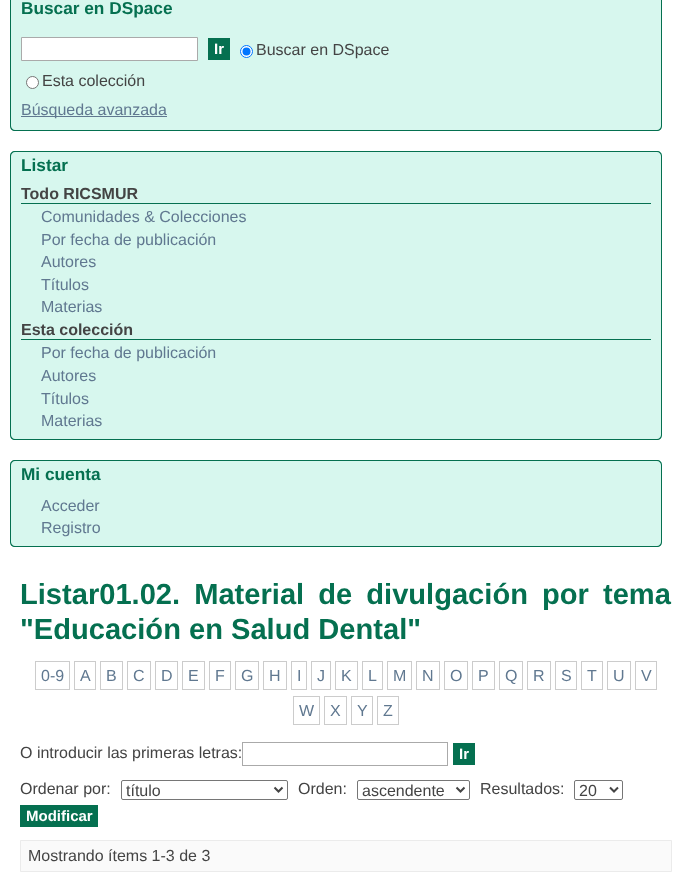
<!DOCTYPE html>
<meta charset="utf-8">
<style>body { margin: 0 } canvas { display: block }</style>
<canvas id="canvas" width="682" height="896"></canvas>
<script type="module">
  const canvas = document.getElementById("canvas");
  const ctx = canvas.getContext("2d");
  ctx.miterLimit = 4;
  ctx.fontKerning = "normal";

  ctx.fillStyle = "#ffffff";
  ctx.fillRect(0, 0, 682, 896);
  ctx.fillStyle = "#d7f7ee";
  ctx.fillRect(11, 0, 650, 22);
  ctx.fillStyle = "#057050";
  ctx.beginPath();
  ctx.moveTo(15, -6);
  ctx.lineTo(657, -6);
  ctx.bezierCurveTo(660, -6, 662, -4, 662, -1);
  ctx.lineTo(662, 22);
  ctx.lineTo(10, 22);
  ctx.lineTo(10, -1);
  ctx.bezierCurveTo(10, -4, 12, -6, 15, -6);
  ctx.closePath();
  ctx.moveTo(15, -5);
  ctx.lineTo(657, -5);
  ctx.bezierCurveTo(659, -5, 661, -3, 661, -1);
  ctx.lineTo(661, 22);
  ctx.lineTo(11, 22);
  ctx.lineTo(11, -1);
  ctx.bezierCurveTo(11, -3, 13, -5, 15, -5);
  ctx.closePath();
  ctx.fill("evenodd");
  ctx.font = "bold 17.25px Liberation Sans";
  ctx.fillText("Buscar en DSpace", 21, 14);
  ctx.fillStyle = "#d7f7ee";
  ctx.beginPath();
  ctx.roundRect(10, 22, 652, 109, [0, 0, 5, 5]);
  ctx.fill();
  ctx.fillStyle = "#057050";
  ctx.beginPath();
  ctx.moveTo(10, 22);
  ctx.lineTo(662, 22);
  ctx.lineTo(662, 126);
  ctx.bezierCurveTo(662, 129, 660, 131, 657, 131);
  ctx.lineTo(15, 131);
  ctx.bezierCurveTo(12, 131, 10, 129, 10, 126);
  ctx.closePath();
  ctx.moveTo(11, 22);
  ctx.lineTo(661, 22);
  ctx.lineTo(661, 126);
  ctx.bezierCurveTo(661, 128, 659, 130, 657, 130);
  ctx.lineTo(15, 130);
  ctx.bezierCurveTo(13, 130, 11, 128, 11, 126);
  ctx.closePath();
  ctx.fill("evenodd");
  ctx.fillStyle = "#ffffff";
  ctx.beginPath();
  ctx.rect(21.5, 37.5, 176, 23);
  ctx.fill();
  ctx.strokeStyle = "#aaaaaa";
  ctx.stroke();
  ctx.fillStyle = "#057050";
  ctx.fillRect(208, 38, 22, 22);
  ctx.font = "bold 15px Liberation Sans";
  ctx.fillStyle = "#ffffff";
  ctx.fillText("Ir", 214, 54);
  ctx.beginPath();
  ctx.arc(246.5, 51.5, 6, 0, Math.PI * 2);
  ctx.fill();
  ctx.strokeStyle = "#0075ff";
  ctx.stroke();
  ctx.fillStyle = "#0075ff";
  ctx.beginPath();
  ctx.arc(246.5, 51.5, 4, 0, Math.PI * 2);
  ctx.fill();
  ctx.font = "16px Liberation Sans";
  ctx.fillStyle = "#444444";
  ctx.fillText("Buscar en DSpace", 256, 55);
  ctx.fillStyle = "#ffffff";
  ctx.beginPath();
  ctx.arc(32.5, 82.5, 6, 0, Math.PI * 2);
  ctx.fill();
  ctx.strokeStyle = "#767676";
  ctx.stroke();
  ctx.fillStyle = "#444444";
  ctx.fillText("Esta colección", 42, 86);
  ctx.fillStyle = "#607890";
  ctx.fillRect(21, 116, 146, 1);
  ctx.fillText("Búsqueda avanzada", 21, 115);
  ctx.fillStyle = "#d7f7ee";
  ctx.beginPath();
  ctx.roundRect(10, 151, 652, 28, [5, 5, 0, 0]);
  ctx.fill();
  ctx.fillStyle = "#057050";
  ctx.beginPath();
  ctx.moveTo(15, 151);
  ctx.lineTo(657, 151);
  ctx.bezierCurveTo(660, 151, 662, 153, 662, 156);
  ctx.lineTo(662, 179);
  ctx.lineTo(10, 179);
  ctx.lineTo(10, 156);
  ctx.bezierCurveTo(10, 153, 12, 151, 15, 151);
  ctx.closePath();
  ctx.moveTo(15, 152);
  ctx.lineTo(657, 152);
  ctx.bezierCurveTo(659, 152, 661, 154, 661, 156);
  ctx.lineTo(661, 179);
  ctx.lineTo(11, 179);
  ctx.lineTo(11, 156);
  ctx.bezierCurveTo(11, 154, 13, 152, 15, 152);
  ctx.closePath();
  ctx.fill("evenodd");
  ctx.font = "bold 17.25px Liberation Sans";
  ctx.fillText("Listar", 21, 171);
  ctx.fillStyle = "#d7f7ee";
  ctx.beginPath();
  ctx.roundRect(10, 179, 652, 261, [0, 0, 5, 5]);
  ctx.fill();
  ctx.fillStyle = "#057050";
  ctx.beginPath();
  ctx.moveTo(10, 179);
  ctx.lineTo(662, 179);
  ctx.lineTo(662, 435);
  ctx.bezierCurveTo(662, 438, 660, 440, 657, 440);
  ctx.lineTo(15, 440);
  ctx.bezierCurveTo(12, 440, 10, 438, 10, 435);
  ctx.closePath();
  ctx.moveTo(11, 179);
  ctx.lineTo(661, 179);
  ctx.lineTo(661, 435);
  ctx.bezierCurveTo(661, 437, 659, 439, 657, 439);
  ctx.lineTo(15, 439);
  ctx.bezierCurveTo(13, 439, 11, 437, 11, 435);
  ctx.closePath();
  ctx.fill("evenodd");
  ctx.fillRect(21, 203, 630, 1);
  ctx.font = "bold 16px Liberation Sans";
  ctx.fillStyle = "#444444";
  ctx.fillText("Todo RICSMUR", 21, 199);
  ctx.font = "16px Liberation Sans";
  ctx.fillStyle = "#607890";
  ctx.fillText("Comunidades & Colecciones", 41, 222);
  ctx.fillText("Por fecha de publicación", 41, 245);
  ctx.fillText("Autores", 41, 267);
  ctx.fillText("Títulos", 41, 290);
  ctx.fillText("Materias", 41, 312);
  ctx.fillStyle = "#057050";
  ctx.fillRect(21, 339, 630, 1);
  ctx.font = "bold 16px Liberation Sans";
  ctx.fillStyle = "#444444";
  ctx.fillText("Esta colección", 21, 335);
  ctx.font = "16px Liberation Sans";
  ctx.fillStyle = "#607890";
  ctx.fillText("Por fecha de publicación", 41, 358);
  ctx.fillText("Autores", 41, 381);
  ctx.fillText("Títulos", 41, 404);
  ctx.fillText("Materias", 41, 426);
  ctx.fillStyle = "#d7f7ee";
  ctx.beginPath();
  ctx.roundRect(10, 460, 652, 28, [5, 5, 0, 0]);
  ctx.fill();
  ctx.fillStyle = "#057050";
  ctx.beginPath();
  ctx.moveTo(15, 460);
  ctx.lineTo(657, 460);
  ctx.bezierCurveTo(660, 460, 662, 462, 662, 465);
  ctx.lineTo(662, 488);
  ctx.lineTo(10, 488);
  ctx.lineTo(10, 465);
  ctx.bezierCurveTo(10, 462, 12, 460, 15, 460);
  ctx.closePath();
  ctx.moveTo(15, 461);
  ctx.lineTo(657, 461);
  ctx.bezierCurveTo(659, 461, 661, 463, 661, 465);
  ctx.lineTo(661, 488);
  ctx.lineTo(11, 488);
  ctx.lineTo(11, 465);
  ctx.bezierCurveTo(11, 463, 13, 461, 15, 461);
  ctx.closePath();
  ctx.fill("evenodd");
  ctx.font = "bold 17.25px Liberation Sans";
  ctx.fillText("Mi cuenta", 21, 480);
  ctx.fillStyle = "#d7f7ee";
  ctx.beginPath();
  ctx.roundRect(10, 488, 652, 59, [0, 0, 5, 5]);
  ctx.fill();
  ctx.fillStyle = "#057050";
  ctx.beginPath();
  ctx.moveTo(10, 488);
  ctx.lineTo(662, 488);
  ctx.lineTo(662, 542);
  ctx.bezierCurveTo(662, 545, 660, 547, 657, 547);
  ctx.lineTo(15, 547);
  ctx.bezierCurveTo(12, 547, 10, 545, 10, 542);
  ctx.closePath();
  ctx.moveTo(11, 488);
  ctx.lineTo(661, 488);
  ctx.lineTo(661, 542);
  ctx.bezierCurveTo(661, 544, 659, 546, 657, 546);
  ctx.lineTo(15, 546);
  ctx.bezierCurveTo(13, 546, 11, 544, 11, 542);
  ctx.closePath();
  ctx.fill("evenodd");
  ctx.font = "16px Liberation Sans";
  ctx.fillStyle = "#607890";
  ctx.fillText("Acceder", 41, 511);
  ctx.fillText("Registro", 41, 533);
  ctx.wordSpacing = "6px";
  ctx.font = "bold 29.1px Liberation Sans";
  ctx.fillStyle = "#057050";
  ctx.fillText("Listar01.02. Material de divulgación por tema", 20, 604);
  ctx.wordSpacing = "0px";
  ctx.fillText("\"Educación en Salud Dental\"", 20, 639);
  ctx.strokeStyle = "#cccccc";
  ctx.strokeRect(35.5, 661.5, 34, 28);
  ctx.font = "16px Liberation Sans";
  ctx.fillStyle = "#607890";
  ctx.fillText("0-9", 41, 681);
  ctx.strokeRect(74.5, 661.5, 21, 28);
  ctx.fillText("A", 80, 681);
  ctx.strokeRect(100.5, 661.5, 22, 28);
  ctx.fillText("B", 106, 681);
  ctx.strokeRect(127.5, 661.5, 23, 28);
  ctx.fillText("C", 133, 681);
  ctx.strokeRect(155.5, 661.5, 22, 28);
  ctx.fillText("D", 161, 681);
  ctx.strokeRect(182.5, 661.5, 22, 28);
  ctx.fillText("E", 188, 681);
  ctx.strokeRect(209.5, 661.5, 21, 28);
  ctx.fillText("F", 215, 681);
  ctx.strokeRect(235.5, 661.5, 23, 28);
  ctx.fillText("G", 241, 681);
  ctx.strokeRect(263.5, 661.5, 23, 28);
  ctx.fillText("H", 269, 681);
  ctx.strokeRect(291.5, 661.5, 15, 28);
  ctx.fillText("I", 297, 681);
  ctx.strokeRect(311.5, 661.5, 19, 28);
  ctx.fillText("J", 317, 681);
  ctx.strokeRect(335.5, 661.5, 22, 28);
  ctx.fillText("K", 341, 681);
  ctx.strokeRect(362.5, 661.5, 20, 28);
  ctx.fillText("L", 368, 681);
  ctx.strokeRect(387.5, 661.5, 24, 28);
  ctx.fillText("M", 393, 681);
  ctx.strokeRect(416.5, 661.5, 23, 28);
  ctx.fillText("N", 422, 681);
  ctx.strokeRect(444.5, 661.5, 23, 28);
  ctx.fillText("O", 450, 681);
  ctx.strokeRect(472.5, 661.5, 22, 28);
  ctx.fillText("P", 478, 681);
  ctx.strokeRect(499.5, 661.5, 23, 28);
  ctx.fillText("Q", 505, 681);
  ctx.strokeRect(527.5, 661.5, 23, 28);
  ctx.fillText("R", 533, 681);
  ctx.strokeRect(555.5, 661.5, 21, 28);
  ctx.fillText("S", 561, 681);
  ctx.strokeRect(581.5, 661.5, 21, 28);
  ctx.fillText("T", 587, 681);
  ctx.strokeRect(607.5, 661.5, 23, 28);
  ctx.fillText("U", 613, 681);
  ctx.strokeRect(635.5, 661.5, 21, 28);
  ctx.fillText("V", 641, 681);
  ctx.strokeRect(293.5, 696.5, 26, 28);
  ctx.fillText("W", 299, 716);
  ctx.strokeRect(324.5, 696.5, 22, 28);
  ctx.fillText("X", 330, 716);
  ctx.strokeRect(351.5, 696.5, 21, 28);
  ctx.fillText("Y", 357, 716);
  ctx.strokeRect(377.5, 696.5, 21, 28);
  ctx.fillText("Z", 383, 716);
  ctx.fillStyle = "#444444";
  ctx.fillText("O introducir las primeras letras:", 20, 758);
  ctx.strokeStyle = "#aaaaaa";
  ctx.strokeRect(242.5, 742.5, 205, 23);
  ctx.fillStyle = "#057050";
  ctx.fillRect(453, 743, 22, 22);
  ctx.font = "bold 15px Liberation Sans";
  ctx.fillStyle = "#ffffff";
  ctx.fillText("Ir", 459, 759);
  ctx.font = "16px Liberation Sans";
  ctx.fillStyle = "#444444";
  ctx.fillText("Ordenar por:", 20, 794);
  ctx.beginPath();
  ctx.roundRect(121.5, 780.5, 166, 19, 1.5);
  ctx.strokeStyle = "#767676";
  ctx.stroke();
  ctx.beginPath();
  ctx.moveTo(274.5, 787.5);
  ctx.lineTo(278.5, 791.5);
  ctx.lineTo(282.5, 787.5);
  ctx.strokeStyle = "#444444";
  ctx.lineWidth = 2;
  ctx.stroke();
  ctx.fillText("título", 126, 796);
  ctx.fillText("Orden:", 298, 794);
  ctx.beginPath();
  ctx.roundRect(357.5, 780.5, 112, 19, 1.5);
  ctx.strokeStyle = "#767676";
  ctx.lineWidth = 1;
  ctx.stroke();
  ctx.beginPath();
  ctx.moveTo(456.5, 787.5);
  ctx.lineTo(460.5, 791.5);
  ctx.lineTo(464.5, 787.5);
  ctx.strokeStyle = "#444444";
  ctx.lineWidth = 2;
  ctx.stroke();
  ctx.fillText("ascendente", 362, 796);
  ctx.fillText("Resultados:", 480, 794);
  ctx.beginPath();
  ctx.roundRect(574.5, 780.5, 48, 19, 1.5);
  ctx.strokeStyle = "#767676";
  ctx.lineWidth = 1;
  ctx.stroke();
  ctx.beginPath();
  ctx.moveTo(610, 787.5);
  ctx.lineTo(614, 791.5);
  ctx.lineTo(618, 787.5);
  ctx.strokeStyle = "#444444";
  ctx.lineWidth = 2;
  ctx.stroke();
  ctx.fillText("20", 579, 796);
  ctx.fillStyle = "#057050";
  ctx.fillRect(20, 805, 78, 22);
  ctx.font = "bold 15px Liberation Sans";
  ctx.fillStyle = "#ffffff";
  ctx.fillText("Modificar", 26, 821);
  ctx.fillStyle = "#fafafa";
  ctx.beginPath();
  ctx.rect(20.5, 840.5, 651, 31);
  ctx.fill();
  ctx.strokeStyle = "#ebebeb";
  ctx.lineWidth = 1;
  ctx.stroke();
  ctx.font = "16px Liberation Sans";
  ctx.fillStyle = "#444444";
  ctx.fillText("Mostrando ítems 1-3 de 3", 28, 861);
</script>
